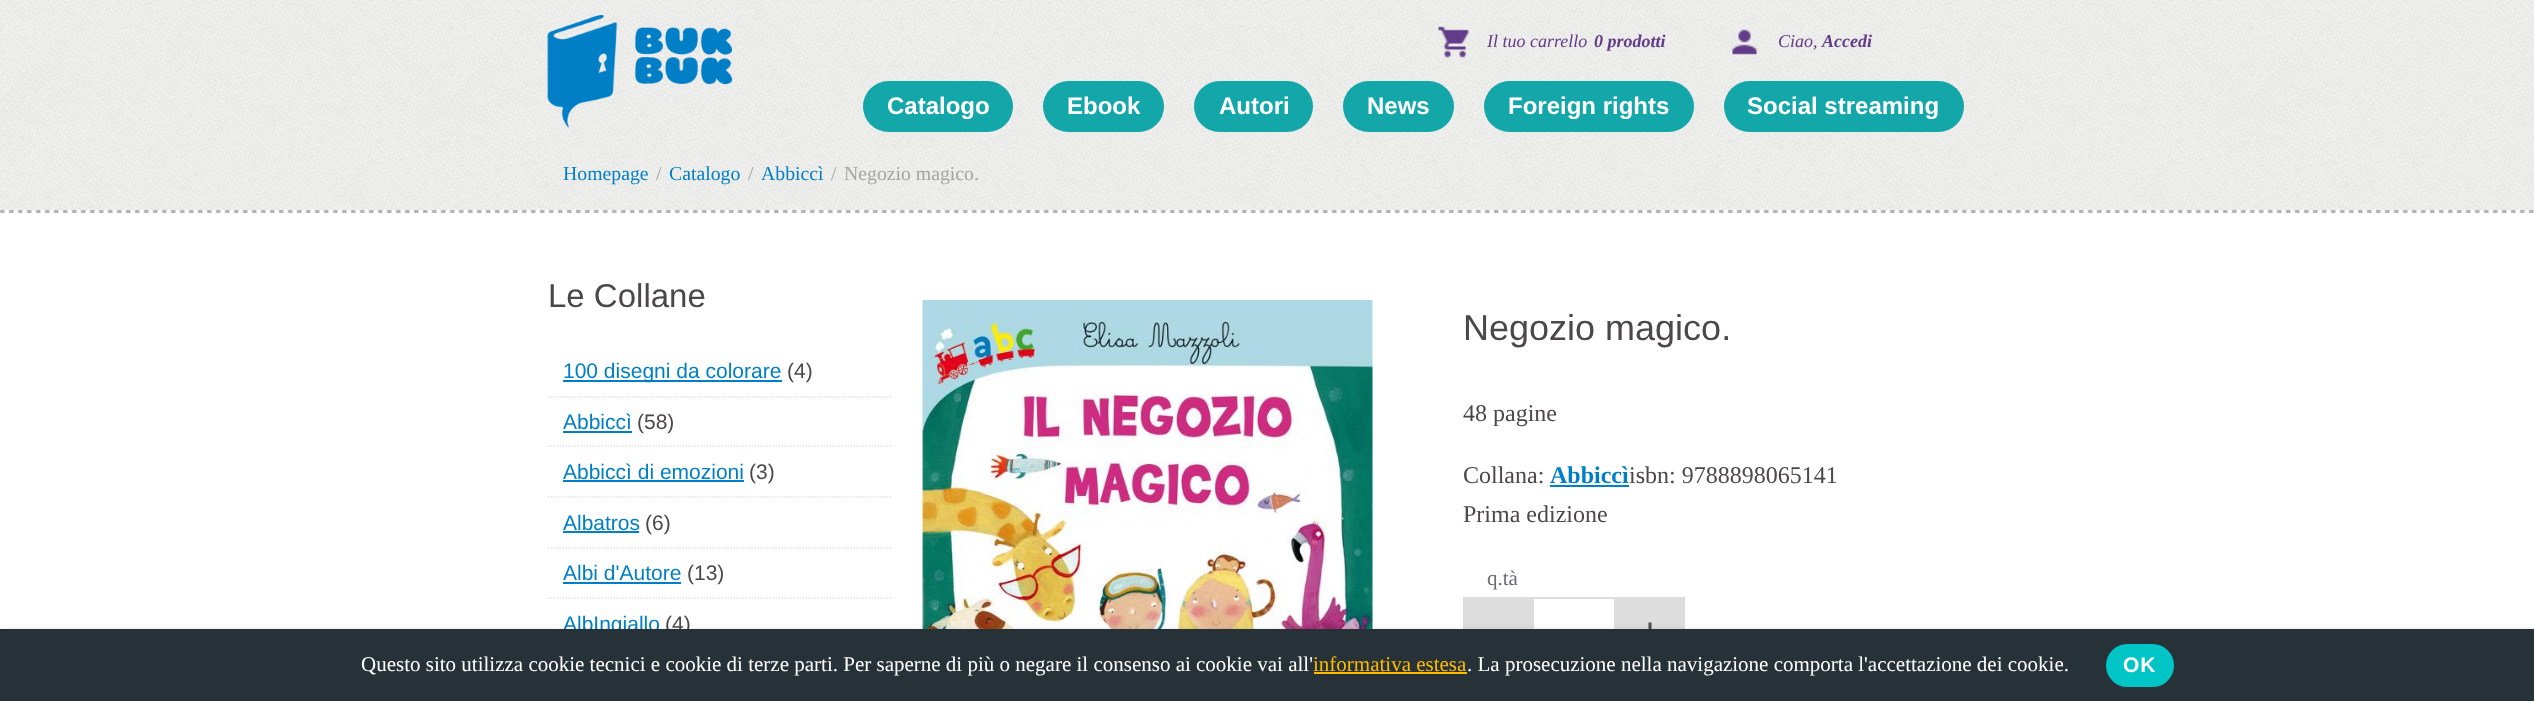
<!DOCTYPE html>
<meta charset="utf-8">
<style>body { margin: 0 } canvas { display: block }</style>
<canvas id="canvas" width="2534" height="701"></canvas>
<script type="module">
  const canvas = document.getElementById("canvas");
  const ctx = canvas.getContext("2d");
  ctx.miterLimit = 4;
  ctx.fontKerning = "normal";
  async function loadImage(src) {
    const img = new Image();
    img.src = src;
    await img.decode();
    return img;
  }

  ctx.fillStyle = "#ffffff";
  ctx.fillRect(0, 0, 2534, 701);
  ctx.drawImage(await loadImage("img1.png"), 0, 0, 2534, 210);
  ctx.drawImage(await loadImage("img2.png"), 547, 15, 185, 113);
  ctx.drawImage(await loadImage("img3.png"), 1438, 26, 31, 32);
  ctx.font = "italic 18px Liberation Serif";
  ctx.fillStyle = "#623c89";
  ctx.fillText("Il tuo carrello", 1487, 47);
  ctx.font = "italic bold 18px Liberation Serif";
  ctx.fillText("0 prodotti", 1594, 47);
  ctx.drawImage(await loadImage("img4.png"), 1732, 29, 25, 26);
  ctx.font = "italic 18px Liberation Serif";
  ctx.fillText("Ciao,", 1778, 47);
  ctx.font = "italic bold 18px Liberation Serif";
  ctx.fillText("Accedi", 1822, 47);
  ctx.fillStyle = "#13a7a9";
  ctx.beginPath();
  ctx.roundRect(863, 81, 150, 51, 25.5);
  ctx.fill();
  ctx.font = "bold 24px Liberation Sans";
  ctx.fillStyle = "#ffffff";
  ctx.fillText("Catalogo", 887, 114);
  ctx.fillStyle = "#13a7a9";
  ctx.beginPath();
  ctx.roundRect(1043, 81, 121, 51, 25.5);
  ctx.fill();
  ctx.fillStyle = "#ffffff";
  ctx.fillText("Ebook", 1067, 114);
  ctx.fillStyle = "#13a7a9";
  ctx.beginPath();
  ctx.roundRect(1194, 81, 119, 51, 25.5);
  ctx.fill();
  ctx.fillStyle = "#ffffff";
  ctx.fillText("Autori", 1219, 114);
  ctx.fillStyle = "#13a7a9";
  ctx.beginPath();
  ctx.roundRect(1343, 81, 111, 51, 25.5);
  ctx.fill();
  ctx.fillStyle = "#ffffff";
  ctx.fillText("News", 1367, 114);
  ctx.fillStyle = "#13a7a9";
  ctx.beginPath();
  ctx.roundRect(1484, 81, 210, 51, 25.5);
  ctx.fill();
  ctx.fillStyle = "#ffffff";
  ctx.fillText("Foreign rights", 1508, 114);
  ctx.fillStyle = "#13a7a9";
  ctx.beginPath();
  ctx.roundRect(1724, 81, 240, 51, 25.5);
  ctx.fill();
  ctx.fillStyle = "#ffffff";
  ctx.fillText("Social streaming", 1747, 114);
  ctx.font = "19.75px Liberation Serif";
  ctx.fillStyle = "#007fc6";
  ctx.fillText("Homepage", 563, 180);
  ctx.fillStyle = "#a5a5a5";
  ctx.fillText("/", 656, 180);
  ctx.fillStyle = "#007fc6";
  ctx.fillText("Catalogo", 669, 180);
  ctx.fillStyle = "#a5a5a5";
  ctx.fillText("/", 748, 180);
  ctx.fillStyle = "#007fc6";
  ctx.fillText("Abbiccì", 761, 180);
  ctx.fillStyle = "#a5a5a5";
  ctx.fillText("/", 831, 180);
  ctx.fillText("Negozio magico.", 844, 180);
  ctx.drawImage(await loadImage("img5.png"), 0, 210, 2534, 3);
  ctx.font = "33px Liberation Sans";
  ctx.fillStyle = "#4a4848";
  ctx.fillText("Le Collane", 548, 307);
  ctx.beginPath();
  ctx.moveTo(547.5, 397);
  ctx.lineTo(892.5, 397);
  ctx.strokeStyle = "#e3e2de";
  ctx.lineWidth = 1.5;
  ctx.setLineDash([1.5, 1.5]);
  ctx.stroke();
  ctx.fillStyle = "#007fc6";
  ctx.fillRect(563, 380, 219, 2);
  ctx.font = "21px Liberation Sans";
  ctx.fillText("100 disegni da colorare", 563, 378);
  ctx.fillStyle = "#4a4848";
  ctx.fillText("(4)", 787, 378);
  ctx.beginPath();
  ctx.moveTo(547.5, 446);
  ctx.lineTo(892.5, 446);
  ctx.stroke();
  ctx.fillStyle = "#007fc6";
  ctx.fillText("Abbiccì", 563, 429);
  ctx.fillRect(563, 431, 69, 2);
  ctx.fillStyle = "#4a4848";
  ctx.fillText("(58)", 637, 429);
  ctx.beginPath();
  ctx.moveTo(547.5, 497);
  ctx.lineTo(892.5, 497);
  ctx.stroke();
  ctx.fillStyle = "#007fc6";
  ctx.fillText("Abbiccì di emozioni", 563, 479);
  ctx.fillRect(563, 480, 181, 2);
  ctx.fillStyle = "#4a4848";
  ctx.fillText("(3)", 749, 479);
  ctx.beginPath();
  ctx.moveTo(547.5, 548);
  ctx.lineTo(892.5, 548);
  ctx.stroke();
  ctx.fillStyle = "#007fc6";
  ctx.fillText("Albatros", 563, 530);
  ctx.fillRect(563, 531, 76, 2);
  ctx.fillStyle = "#4a4848";
  ctx.fillText("(6)", 645, 530);
  ctx.beginPath();
  ctx.moveTo(547.5, 598);
  ctx.lineTo(892.5, 598);
  ctx.stroke();
  ctx.fillStyle = "#007fc6";
  ctx.fillText("Albi d'Autore", 563, 580);
  ctx.fillRect(563, 582, 118, 2);
  ctx.fillStyle = "#4a4848";
  ctx.fillText("(13)", 687, 580);
  ctx.fillStyle = "#007fc6";
  ctx.fillText("AlbIngiallo", 563, 631);
  ctx.fillStyle = "#4a4848";
  ctx.fillText("(4)", 665, 631);
  ctx.drawImage(await loadImage("img6.png"), 922, 300, 451, 329);
  ctx.font = "36px Liberation Sans";
  ctx.fillText("Negozio magico.", 1463, 340);
  ctx.font = "24px Liberation Serif";
  ctx.fillText("48 pagine", 1463, 421);
  ctx.fillText("Collana:", 1463, 483);
  ctx.font = "bold 24px Liberation Serif";
  ctx.fillStyle = "#007fc6";
  ctx.fillText("Abbiccì", 1550, 483);
  ctx.fillRect(1550, 485, 79, 2);
  ctx.font = "24px Liberation Serif";
  ctx.fillStyle = "#4a4848";
  ctx.fillText("isbn: 9788898065141", 1629, 483);
  ctx.fillText("Prima edizione", 1463, 522);
  ctx.font = "21px Liberation Serif";
  ctx.fillStyle = "#696b6e";
  ctx.fillText("q.tà", 1487, 585);
  ctx.fillStyle = "#dddddd";
  ctx.fillRect(1463, 597, 69, 32);
  ctx.strokeStyle = "#dddddd";
  ctx.lineWidth = 2;
  ctx.setLineDash([]);
  ctx.strokeRect(1533, 598, 82, 67);
  ctx.fillRect(1616, 597, 69, 32);
  ctx.drawImage(await loadImage("img7.png"), 1648, 622, 4, 7);
  ctx.fillStyle = "rgba(0, 0, 0, 0.45)";
  ctx.filter = "blur(6px)";
  ctx.beginPath();
  ctx.rect(0, 636, 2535, 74);
  ctx.fill();
  ctx.filter = "none";
  ctx.fillStyle = "#263238";
  ctx.fillRect(0, 629, 2534, 72);
  ctx.fillStyle = "#ffffff";
  ctx.fillText("Questo sito utilizza cookie tecnici e cookie di terze parti. Per saperne di più o negare il consenso ai cookie vai all'", 361, 671);
  ctx.fillStyle = "#ffbb00";
  ctx.fillText("informativa estesa", 1313, 671);
  ctx.fillRect(1314, 672, 153, 2);
  ctx.fillStyle = "#ffffff";
  ctx.fillText(". La prosecuzione nella navigazione comporta l'accettazione dei cookie.", 1467, 671);
  ctx.fillStyle = "#00c5c7";
  ctx.beginPath();
  ctx.roundRect(2107, 645, 66, 41, 20.5);
  ctx.fill();
  ctx.strokeStyle = "#00c5c7";
  ctx.stroke();
  ctx.letterSpacing = "1px";
  ctx.font = "bold 21px Liberation Sans";
  ctx.fillStyle = "#ffffff";
  ctx.fillText("OK", 2123, 672);
</script>
